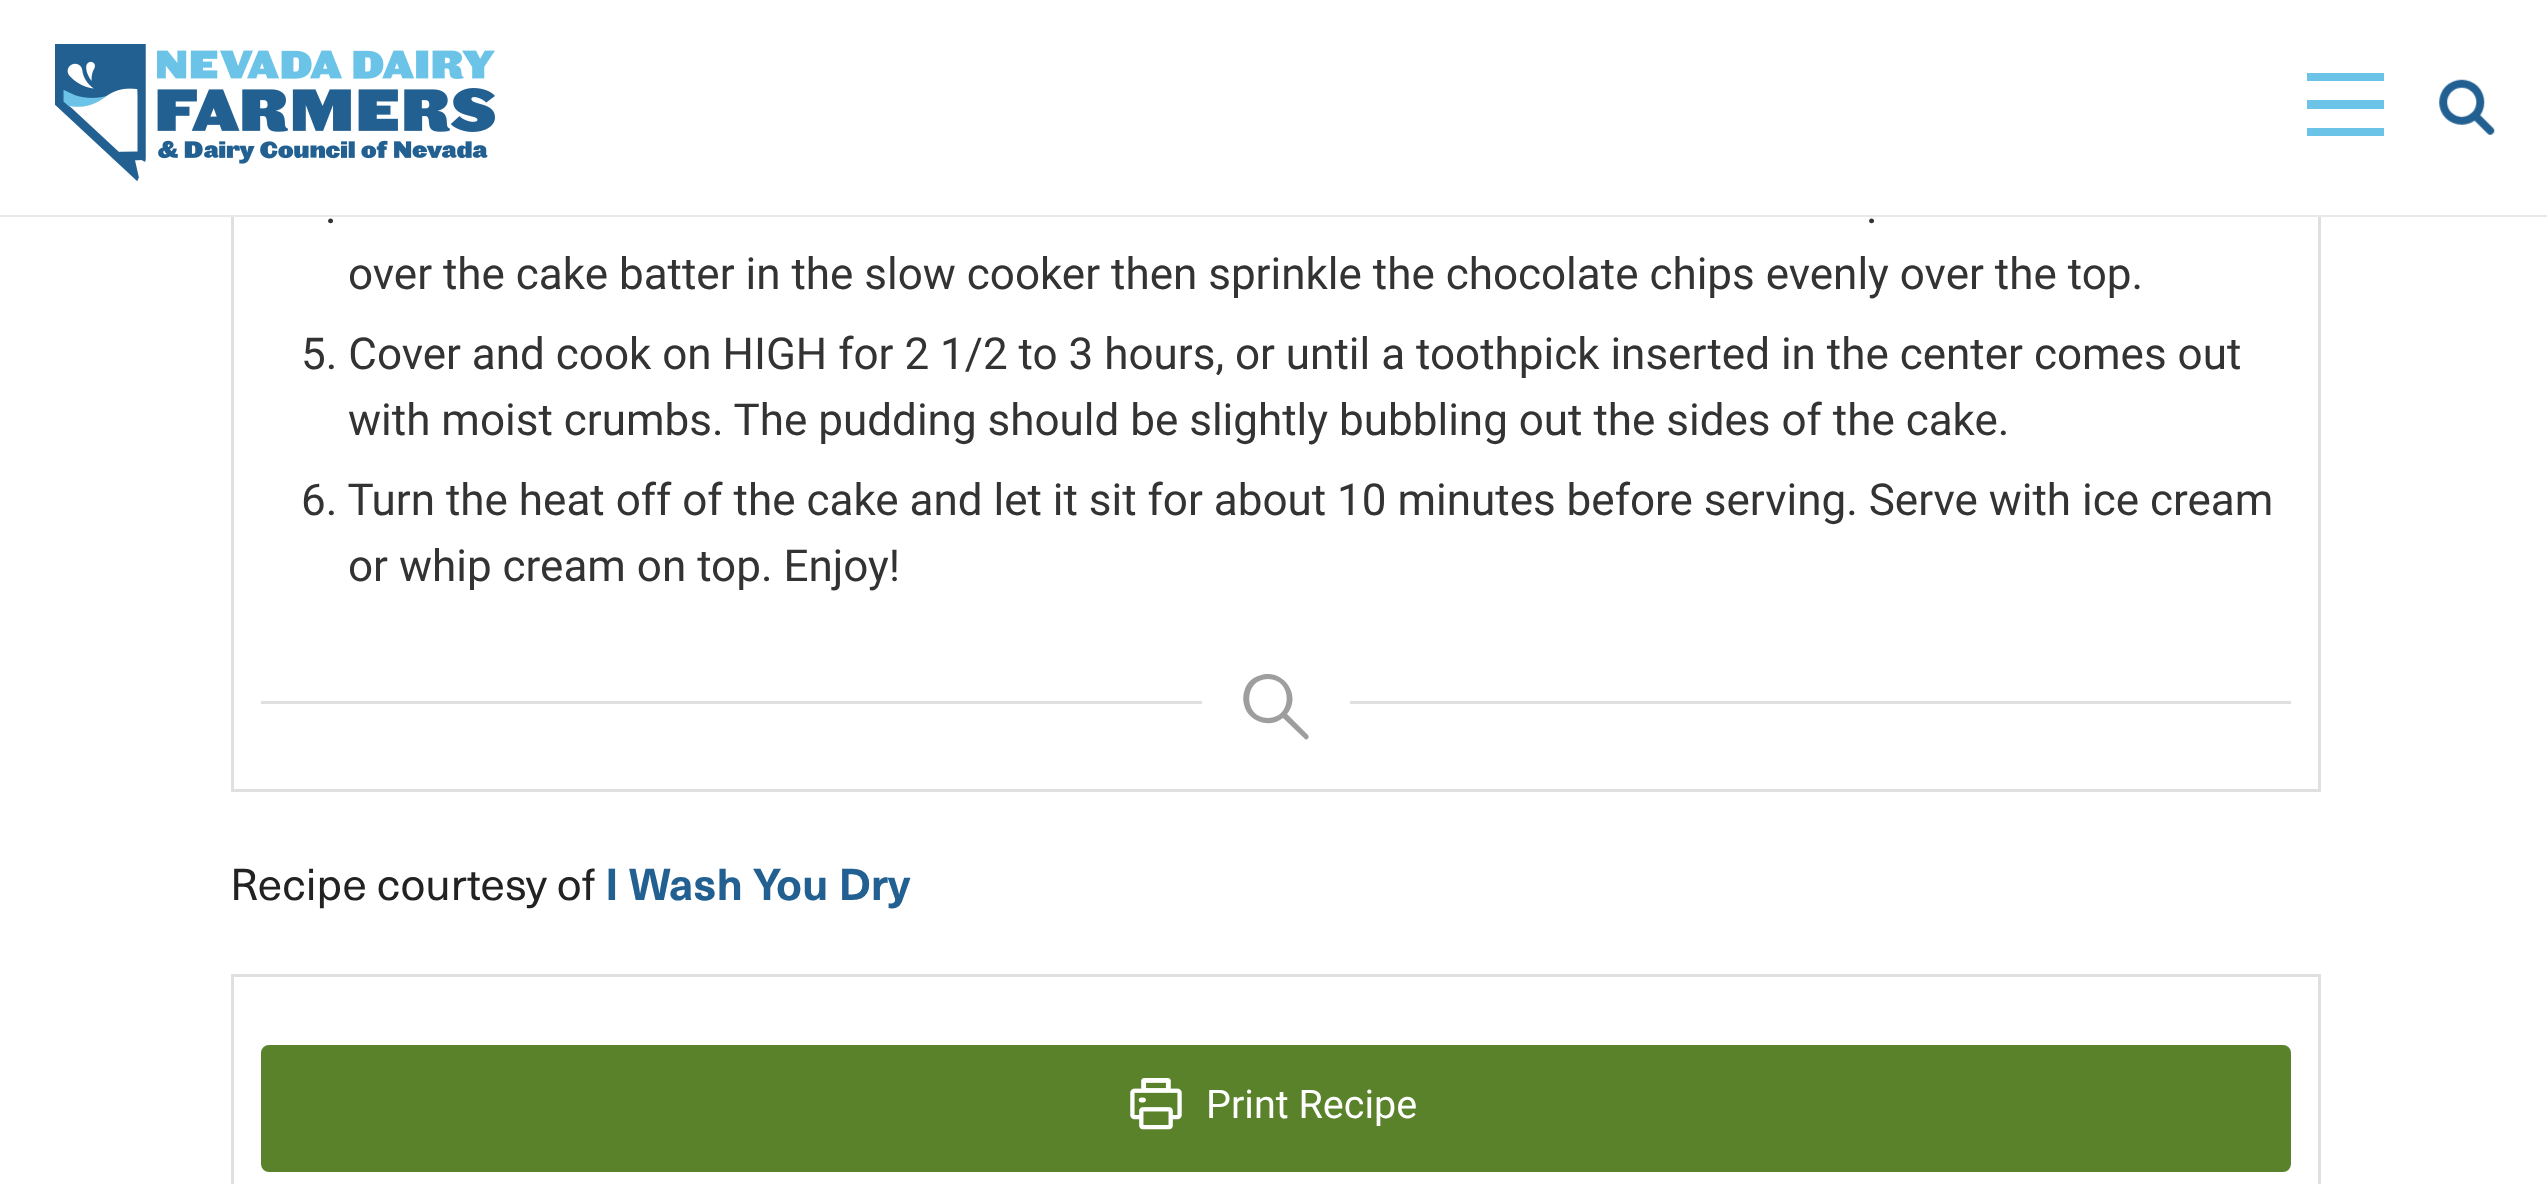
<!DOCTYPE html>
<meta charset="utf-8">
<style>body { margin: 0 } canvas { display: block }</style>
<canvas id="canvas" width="2547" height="1184"></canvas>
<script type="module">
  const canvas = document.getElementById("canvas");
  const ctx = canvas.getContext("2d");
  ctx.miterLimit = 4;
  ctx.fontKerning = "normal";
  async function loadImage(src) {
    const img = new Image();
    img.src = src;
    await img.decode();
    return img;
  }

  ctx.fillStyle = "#ffffff";
  ctx.fillRect(0, 0, 2547, 1184);
  ctx.strokeStyle = "#e0e0e0";
  ctx.lineWidth = 3;
  ctx.strokeRect(232.5, -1.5, 2087, 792);
  ctx.fillStyle = "#e9e9e9";
  ctx.fillRect(0, 215, 2547, 2);
  ctx.fillStyle = "#ffffff";
  ctx.fillRect(231, 0, 2090, 215);
  ctx.drawImage(await loadImage("img1.png"), 55, 44, 440, 138);
  ctx.fillStyle = "#6bc4e8";
  ctx.beginPath();
  ctx.moveTo(2384, 73);
  ctx.lineTo(2384, 81);
  ctx.lineTo(2307, 81);
  ctx.lineTo(2307, 73);
  ctx.closePath();
  ctx.moveTo(2307, 109);
  ctx.lineTo(2384, 109);
  ctx.lineTo(2384, 100);
  ctx.lineTo(2307, 100);
  ctx.closePath();
  ctx.moveTo(2307, 136);
  ctx.lineTo(2384, 136);
  ctx.lineTo(2384, 128);
  ctx.lineTo(2307, 128);
  ctx.closePath();
  ctx.fill();
  ctx.drawImage(await loadImage("img2.png"), 2439, 79, 56, 56);
  ctx.font = "44px Roboto";
  ctx.fillStyle = "#333333";
  ctx.fillText(".", 325, 223);
  ctx.fillText(".", 1866, 223);
  ctx.fillText("over the cake batter in the slow cooker then sprinkle the chocolate chips evenly over the top.", 348, 289);
  ctx.fillText("5. Cover and cook on HIGH for 2 1/2 to 3 hours, or until a toothpick inserted in the center comes out", 301, 369);
  ctx.fillText("with moist crumbs. The pudding should be slightly bubbling out the sides of the cake.", 348, 435);
  ctx.fillText("6. Turn the heat off of the cake and let it sit for about 10 minutes before serving. Serve with ice cream", 301, 515);
  ctx.fillText("or whip cream on top. Enjoy!", 348, 581);
  ctx.fillStyle = "#e0e0e0";
  ctx.fillRect(261, 701, 941, 3);
  ctx.fillStyle = "#9e9e9e";
  ctx.beginPath();
  ctx.moveTo(1268, 718);
  ctx.bezierCurveTo(1243, 718, 1243, 679, 1268, 679);
  ctx.bezierCurveTo(1293, 679, 1293, 718, 1268, 718);
  ctx.moveTo(1308, 735);
  ctx.lineTo(1287, 714);
  ctx.bezierCurveTo(1303, 695, 1282, 666, 1258, 676);
  ctx.bezierCurveTo(1252, 678, 1247, 683, 1245, 689);
  ctx.bezierCurveTo(1242, 697, 1243, 705, 1247, 712);
  ctx.bezierCurveTo(1255, 724, 1272, 727, 1283, 718);
  ctx.lineTo(1305, 739);
  ctx.bezierCurveTo(1307, 741, 1310, 737, 1308, 735);
  ctx.fill("evenodd");
  ctx.fillStyle = "#e0e0e0";
  ctx.fillRect(1350, 701, 941, 3);
  ctx.font = "44px 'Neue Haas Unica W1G'";
  ctx.fillStyle = "#222222";
  ctx.fillText("Recipe courtesy of", 230, 900);
  ctx.font = "bold 44px 'Neue Haas Unica W1G'";
  ctx.fillStyle = "#236092";
  ctx.fillText("I Wash You Dry", 605, 900);
  ctx.strokeRect(232.5, 975.5, 2087, 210);
  ctx.fillStyle = "#5a822b";
  ctx.beginPath();
  ctx.roundRect(262.5, 1046.5, 2027, 124, 6.5);
  ctx.fill();
  ctx.strokeStyle = "#5a822b";
  ctx.stroke();
  ctx.drawImage(await loadImage("img3.png"), 1130, 1078, 52, 52);
  ctx.font = "39.5px Roboto";
  ctx.fillStyle = "#ffffff";
  ctx.fillText("Print Recipe", 1206, 1118);
</script>
